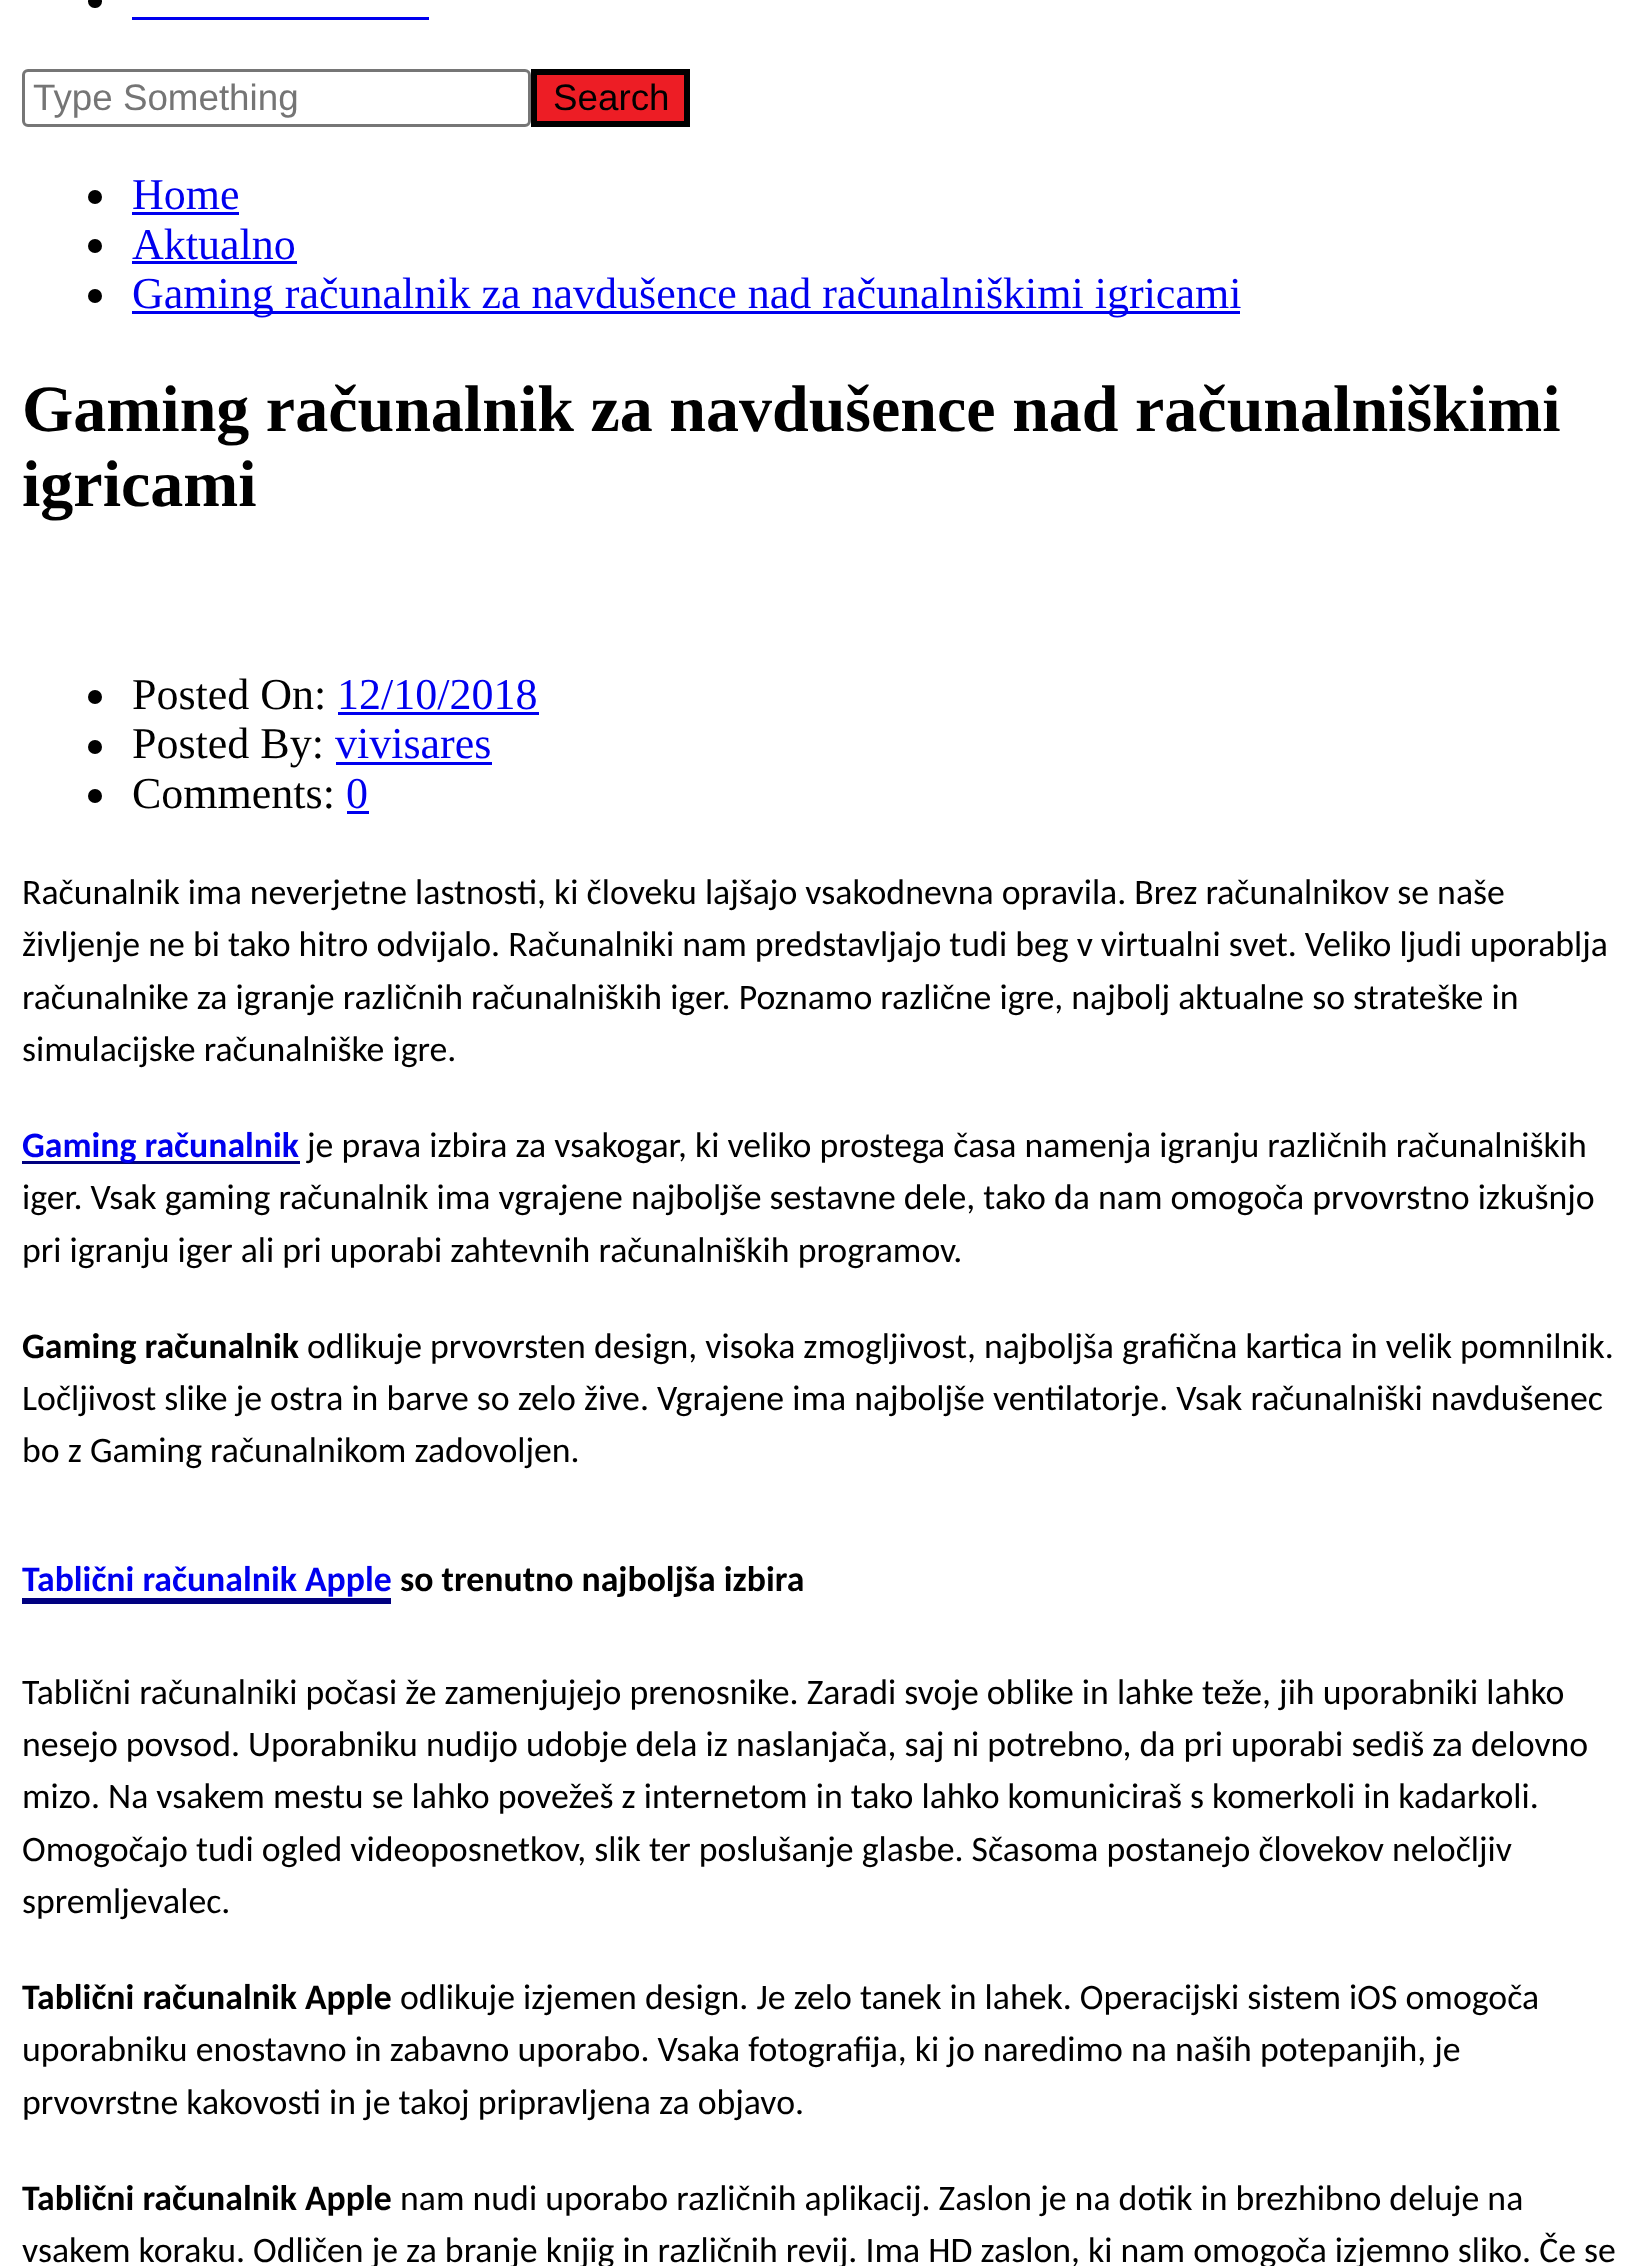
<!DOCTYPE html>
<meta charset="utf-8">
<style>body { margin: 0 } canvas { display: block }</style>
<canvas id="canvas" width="1638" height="2266"></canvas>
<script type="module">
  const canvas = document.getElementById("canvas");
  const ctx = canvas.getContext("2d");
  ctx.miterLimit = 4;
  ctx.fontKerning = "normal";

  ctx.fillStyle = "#ffffff";
  ctx.fillRect(0, 0, 1638, 2266);
  ctx.fillStyle = "#000000";
  ctx.beginPath();
  ctx.roundRect(88, -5, 14, 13, 6.5);
  ctx.fill();
  ctx.fillStyle = "#0000ee";
  ctx.fillRect(132, 17, 297, 3);
  ctx.beginPath();
  ctx.roundRect(23.5, 70.5, 506, 55, 4.5);
  ctx.strokeStyle = "#767676";
  ctx.lineWidth = 3;
  ctx.stroke();
  ctx.font = "36.75px Liberation Sans";
  ctx.fillStyle = "#757575";
  ctx.fillText("Type Something", 33, 110);
  ctx.fillStyle = "#ed1d25";
  ctx.beginPath();
  ctx.rect(534, 72, 153, 52);
  ctx.fill();
  ctx.strokeStyle = "#000000";
  ctx.lineWidth = 6;
  ctx.stroke();
  ctx.fillStyle = "#000000";
  ctx.fillText("Search", 553, 110);
  ctx.beginPath();
  ctx.arc(95, 197, 7, 0, Math.PI * 2);
  ctx.fill();
  ctx.font = "44px Liberation Serif";
  ctx.fillStyle = "#0000ee";
  ctx.fillText("Home", 132, 209);
  ctx.fillRect(132, 212, 107, 3);
  ctx.fillStyle = "#000000";
  ctx.beginPath();
  ctx.arc(95, 246, 7, 0, Math.PI * 2);
  ctx.fill();
  ctx.fillStyle = "#0000ee";
  ctx.fillText("Aktualno", 132, 259);
  ctx.fillRect(132, 261, 165, 3);
  ctx.fillStyle = "#000000";
  ctx.beginPath();
  ctx.arc(95, 296, 7, 0, Math.PI * 2);
  ctx.fill();
  ctx.fillStyle = "#0000ee";
  ctx.fillRect(132, 311, 1108, 3);
  ctx.fillText("Gaming računalnik za navdušence nad računalniškimi igricami", 132, 308);
  ctx.font = "bold 66px Liberation Serif";
  ctx.fillStyle = "#000000";
  ctx.fillText("Gaming računalnik za navdušence nad računalniškimi", 22, 431);
  ctx.fillText("igricami", 22, 506);
  ctx.beginPath();
  ctx.arc(95, 697, 7, 0, Math.PI * 2);
  ctx.fill();
  ctx.font = "44px Liberation Serif";
  ctx.fillText("Posted On:", 132, 709);
  ctx.fillStyle = "#0000ee";
  ctx.fillText("12/10/2018", 337, 709);
  ctx.fillRect(338, 712, 201, 3);
  ctx.fillStyle = "#000000";
  ctx.beginPath();
  ctx.arc(95, 747, 7, 0, Math.PI * 2);
  ctx.fill();
  ctx.fillText("Posted By:", 132, 758);
  ctx.fillStyle = "#0000ee";
  ctx.fillText("vivisares", 335, 758);
  ctx.fillRect(336, 762, 156, 3);
  ctx.fillStyle = "#000000";
  ctx.beginPath();
  ctx.arc(95, 796, 7, 0, Math.PI * 2);
  ctx.fill();
  ctx.fillText("Comments:", 132, 808);
  ctx.fillStyle = "#0000ee";
  ctx.fillText("0", 346, 808);
  ctx.fillRect(347, 811, 22, 3);
  ctx.font = "35.75px Carlito";
  ctx.fillStyle = "#000000";
  ctx.fillText("Računalnik ima neverjetne lastnosti, ki človeku lajšajo vsakodnevna opravila. Brez računalnikov se naše", 22, 904);
  ctx.fillText("življenje ne bi tako hitro odvijalo. Računalniki nam predstavljajo tudi beg v virtualni svet. Veliko ljudi uporablja", 22, 956);
  ctx.fillText("računalnike za igranje različnih računalniških iger. Poznamo različne igre, najbolj aktualne so strateške in", 22, 1009);
  ctx.fillText("simulacijske računalniške igre.", 22, 1061);
  ctx.fillStyle = "#000080";
  ctx.fillRect(22, 1161, 278, 3);
  ctx.font = "bold 35.75px Carlito";
  ctx.fillStyle = "#0000ee";
  ctx.fillText("Gaming računalnik", 22, 1157);
  ctx.font = "35.75px Carlito";
  ctx.fillStyle = "#000000";
  ctx.fillText("je prava izbira za vsakogar, ki veliko prostega časa namenja igranju različnih računalniških", 307, 1157);
  ctx.fillText("iger. Vsak gaming računalnik ima vgrajene najboljše sestavne dele, tako da nam omogoča prvovrstno izkušnjo", 22, 1209);
  ctx.fillText("pri igranju iger ali pri uporabi zahtevnih računalniških programov.", 22, 1262);
  ctx.font = "bold 35.75px Carlito";
  ctx.fillText("Gaming računalnik", 22, 1358);
  ctx.font = "35.75px Carlito";
  ctx.fillText("odlikuje prvovrsten design, visoka zmogljivost, najboljša grafična kartica in velik pomnilnik.", 307, 1358);
  ctx.fillText("Ločljivost slike je ostra in barve so zelo žive. Vgrajene ima najboljše ventilatorje. Vsak računalniški navdušenec", 22, 1410);
  ctx.fillText("bo z Gaming računalnikom zadovoljen.", 22, 1462);
  ctx.font = "bold 35.75px Carlito";
  ctx.fillStyle = "#0000ee";
  ctx.fillText("Tablični računalnik Apple", 22, 1591);
  ctx.fillStyle = "#000080";
  ctx.fillRect(22, 1598, 369, 6);
  ctx.fillStyle = "#000000";
  ctx.fillText("so trenutno najboljša izbira", 400, 1591);
  ctx.font = "35.75px Carlito";
  ctx.fillText("Tablični računalniki počasi že zamenjujejo prenosnike. Zaradi svoje oblike in lahke teže, jih uporabniki lahko", 22, 1704);
  ctx.fillText("nesejo povsod. Uporabniku nudijo udobje dela iz naslanjača, saj ni potrebno, da pri uporabi sediš za delovno", 22, 1756);
  ctx.fillText("mizo. Na vsakem mestu se lahko povežeš z internetom in tako lahko komuniciraš s komerkoli in kadarkoli.", 22, 1808);
  ctx.fillText("Omogočajo tudi ogled videoposnetkov, slik ter poslušanje glasbe. Sčasoma postanejo človekov neločljiv", 22, 1861);
  ctx.fillText("spremljevalec.", 22, 1913);
  ctx.font = "bold 35.75px Carlito";
  ctx.fillText("Tablični računalnik Apple", 22, 2009);
  ctx.font = "35.75px Carlito";
  ctx.fillText("odlikuje izjemen design. Je zelo tanek in lahek. Operacijski sistem iOS omogoča", 400, 2009);
  ctx.fillText("uporabniku enostavno in zabavno uporabo. Vsaka fotografija, ki jo naredimo na naših potepanjih, je", 22, 2061);
  ctx.fillText("prvovrstne kakovosti in je takoj pripravljena za objavo.", 22, 2114);
  ctx.font = "bold 35.75px Carlito";
  ctx.fillText("Tablični računalnik Apple", 22, 2210);
  ctx.font = "35.75px Carlito";
  ctx.fillText("nam nudi uporabo različnih aplikacij. Zaslon je na dotik in brezhibno deluje na", 400, 2210);
  ctx.fillText("vsakem koraku. Odličen je za branje knjig in različnih revij. Ima HD zaslon, ki nam omogoča izjemno sliko. Če se", 22, 2262);
</script>
